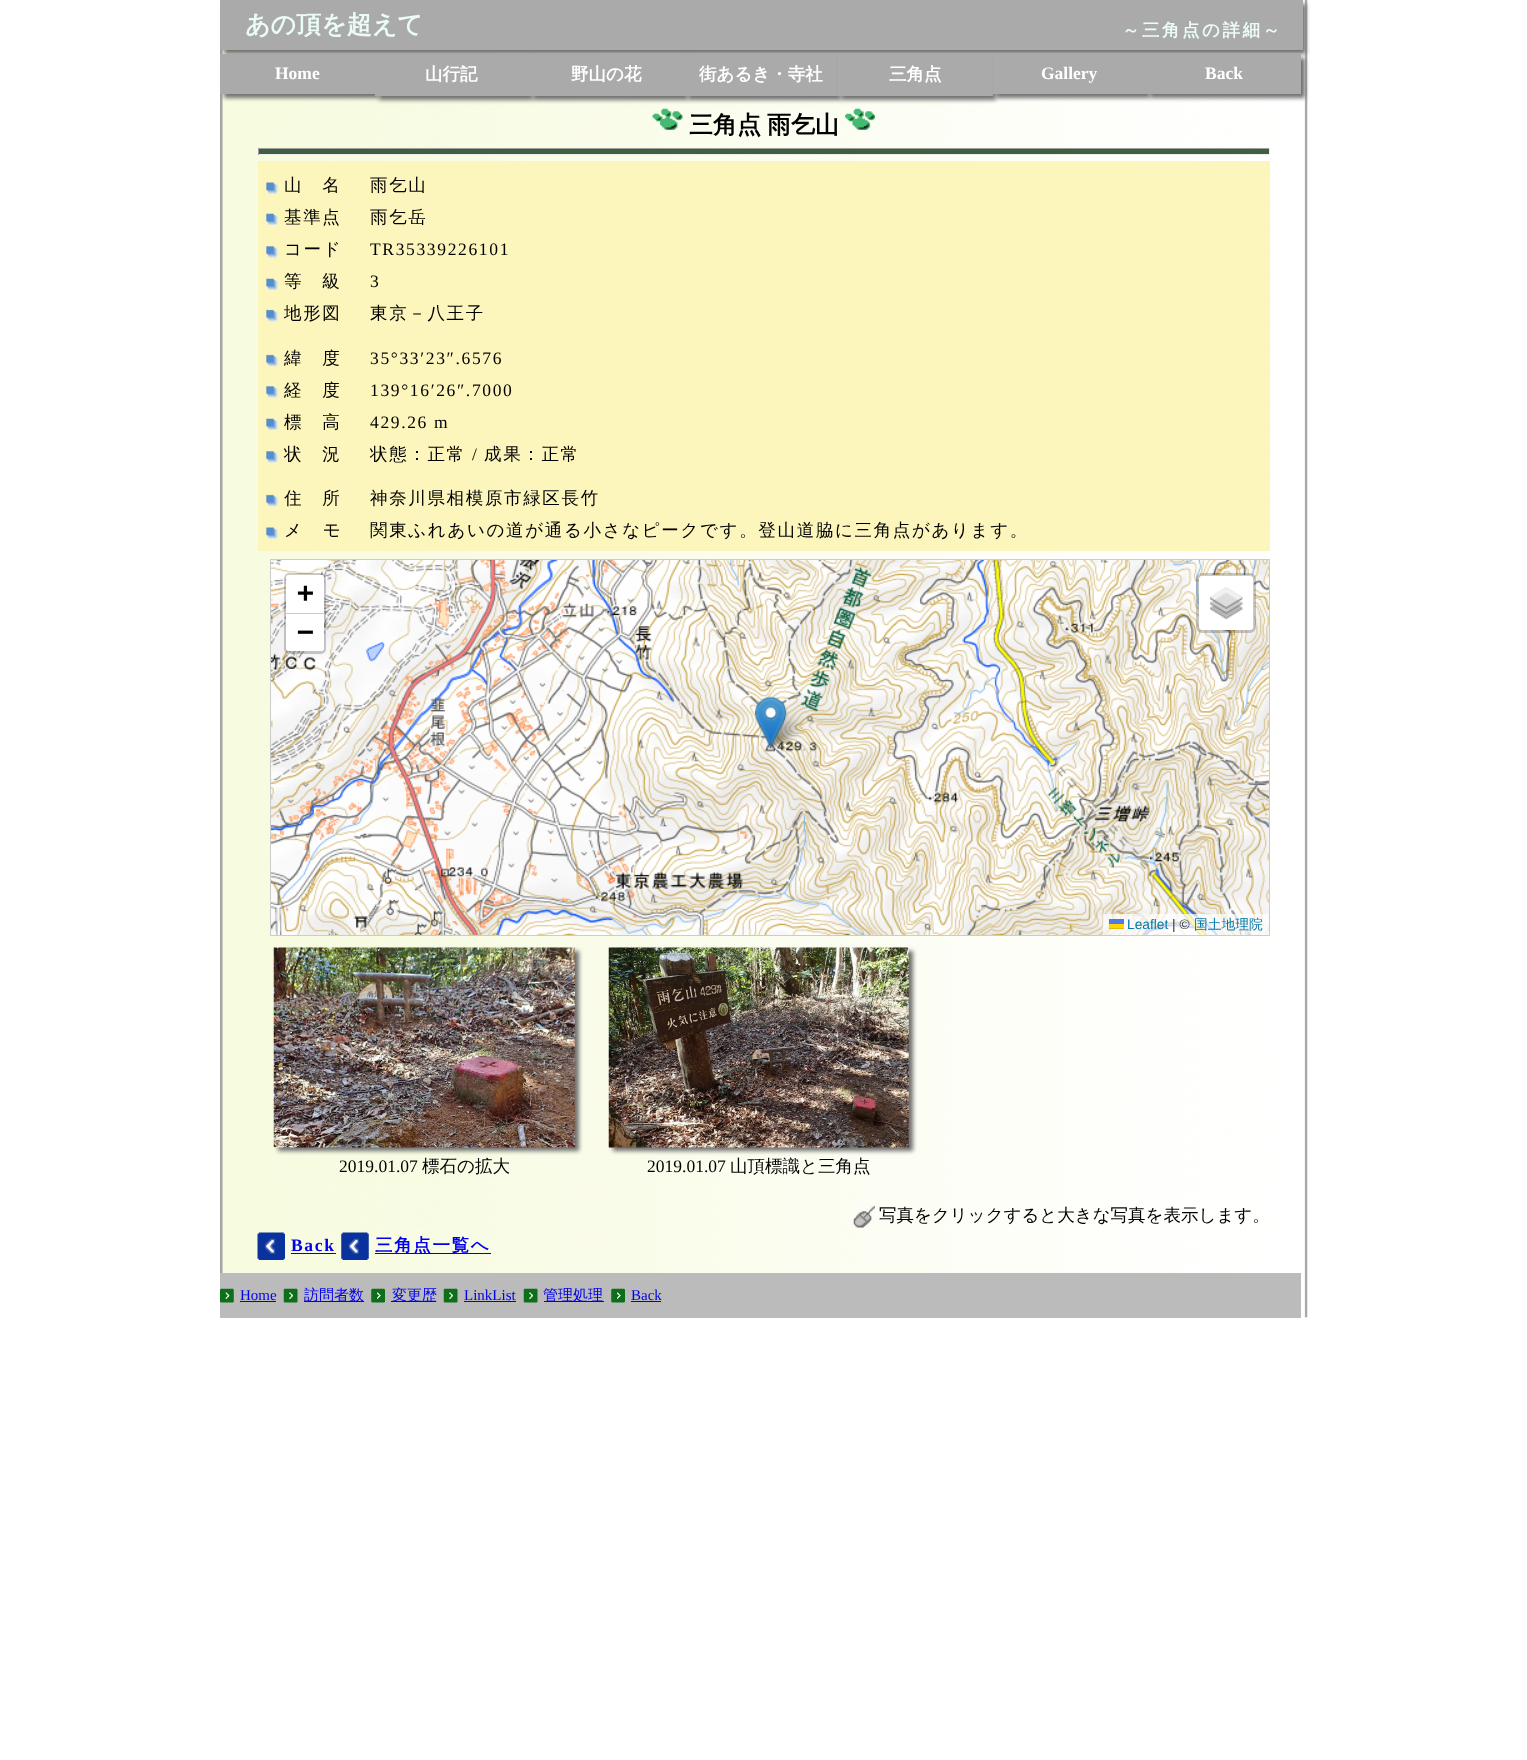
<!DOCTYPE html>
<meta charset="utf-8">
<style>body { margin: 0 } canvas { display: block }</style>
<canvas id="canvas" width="1527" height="1760"></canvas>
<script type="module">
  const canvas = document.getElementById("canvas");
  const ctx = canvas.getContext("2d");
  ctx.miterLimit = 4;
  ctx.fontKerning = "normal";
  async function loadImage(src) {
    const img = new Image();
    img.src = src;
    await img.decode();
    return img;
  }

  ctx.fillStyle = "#ffffff";
  ctx.fillRect(0, 0, 1527, 1760);
  ctx.drawImage(await loadImage("img1.png"), 220, 0, 1088, 1318);
  ctx.fillStyle = "#707070";
  ctx.filter = "blur(2px)";
  ctx.beginPath();
  ctx.rect(224, 4, 1082, 50);
  ctx.fill();
  ctx.filter = "none";
  ctx.fillStyle = "#aaaaaa";
  ctx.fillRect(220, 0, 1083, 50);
  ctx.font = "bold 25px WenQuanYi Zen Hei";
  ctx.fillStyle = "#ebfcf6";
  ctx.fillText("あの頂を超えて", 245, 33);
  ctx.letterSpacing = "2.5px";
  ctx.font = "bold 17.5px WenQuanYi Zen Hei";
  ctx.fillText("～三角点の詳細～", 1122, 36);
  ctx.fillStyle = "#707070";
  ctx.filter = "blur(2px)";
  ctx.beginPath();
  ctx.rect(224, 58, 155, 40);
  ctx.fill();
  ctx.filter = "none";
  ctx.fillStyle = "#aaaaaa";
  ctx.fillRect(220, 54, 155, 40);
  ctx.letterSpacing = "0px";
  ctx.font = "bold 17.5px Liberation Serif";
  ctx.fillStyle = "#ffffff";
  ctx.fillText("Home", 275, 79);
  ctx.fillStyle = "#707070";
  ctx.filter = "blur(2px)";
  ctx.beginPath();
  ctx.rect(379, 58, 154, 42);
  ctx.fill();
  ctx.filter = "none";
  ctx.fillStyle = "#aaaaaa";
  ctx.fillRect(375, 54, 154, 42);
  ctx.font = "bold 17.5px WenQuanYi Zen Hei";
  ctx.fillStyle = "#ffffff";
  ctx.fillText("山行記", 425, 80);
  ctx.fillStyle = "#707070";
  ctx.filter = "blur(2px)";
  ctx.beginPath();
  ctx.rect(533, 58, 155, 42);
  ctx.fill();
  ctx.filter = "none";
  ctx.fillStyle = "#aaaaaa";
  ctx.fillRect(529, 54, 155, 42);
  ctx.fillStyle = "#ffffff";
  ctx.fillText("野山の花", 571, 80);
  ctx.fillStyle = "#707070";
  ctx.filter = "blur(2px)";
  ctx.beginPath();
  ctx.rect(688, 58, 153, 42);
  ctx.fill();
  ctx.filter = "none";
  ctx.fillStyle = "#aaaaaa";
  ctx.fillRect(684, 54, 154, 42);
  ctx.fillStyle = "#ffffff";
  ctx.fillText("街あるき・寺社", 699, 80);
  ctx.fillStyle = "#707070";
  ctx.filter = "blur(2px)";
  ctx.beginPath();
  ctx.rect(841, 58, 155, 42);
  ctx.fill();
  ctx.filter = "none";
  ctx.fillStyle = "#aaaaaa";
  ctx.fillRect(838, 54, 155, 42);
  ctx.fillStyle = "#ffffff";
  ctx.fillText("三角点", 889, 80);
  ctx.fillStyle = "#707070";
  ctx.filter = "blur(2px)";
  ctx.beginPath();
  ctx.rect(996, 58, 154, 40);
  ctx.fill();
  ctx.filter = "none";
  ctx.fillStyle = "#aaaaaa";
  ctx.fillRect(993, 54, 153, 40);
  ctx.font = "bold 17.5px Liberation Serif";
  ctx.fillStyle = "#ffffff";
  ctx.fillText("Gallery", 1041, 79);
  ctx.fillStyle = "#707070";
  ctx.filter = "blur(2px)";
  ctx.beginPath();
  ctx.rect(1150, 58, 155, 40);
  ctx.fill();
  ctx.filter = "none";
  ctx.fillStyle = "#aaaaaa";
  ctx.fillRect(1146, 54, 155, 40);
  ctx.fillStyle = "#ffffff";
  ctx.fillText("Back", 1205, 79);
  ctx.drawImage(await loadImage("img2.png"), 652, 108, 31, 22);
  ctx.font = "bold 24px WenQuanYi Zen Hei";
  ctx.fillStyle = "#000000";
  ctx.fillText("三角点", 689, 133);
  ctx.fillText("雨乞山", 767, 133);
  ctx.drawImage(await loadImage("img3.png"), 845, 108, 30, 22);
  ctx.fillStyle = "#3f603e";
  ctx.fillRect(258, 149, 1012, 5);
  ctx.fillStyle = "#9f9f9f";
  ctx.fillRect(258, 148, 1012, 1);
  ctx.fillStyle = "#eeeeee";
  ctx.fillRect(1269, 148, 1, 7);
  ctx.fillRect(258, 154, 1012, 1);
  ctx.fillStyle = "#9f9f9f";
  ctx.fillRect(258, 148, 1, 7);
  ctx.fillStyle = "#fcf5bc";
  ctx.fillRect(258, 161, 1012, 390);
  ctx.drawImage(await loadImage("img4.png"), 266, 182, 12, 12);
  ctx.letterSpacing = "1.65px";
  ctx.font = "500 17.5px WenQuanYi Zen Hei";
  ctx.fillStyle = "#000000";
  ctx.fillText("山　名", 284, 191);
  ctx.fillText("雨乞山", 370, 191);
  ctx.drawImage(await loadImage("img5.png"), 266, 213, 12, 12);
  ctx.fillText("基準点", 284, 223);
  ctx.fillText("雨乞岳", 370, 223);
  ctx.drawImage(await loadImage("img6.png"), 266, 246, 12, 12);
  ctx.fillText("コード", 284, 255);
  ctx.font = "17.5px Liberation Serif";
  ctx.fillText("TR35339226101", 370, 255);
  ctx.drawImage(await loadImage("img5.png"), 266, 278, 12, 12);
  ctx.font = "500 17.5px WenQuanYi Zen Hei";
  ctx.fillText("等　級", 284, 287);
  ctx.font = "17.5px Liberation Serif";
  ctx.fillText("3", 370, 287);
  ctx.drawImage(await loadImage("img7.png"), 266, 309, 12, 13);
  ctx.font = "500 17.5px WenQuanYi Zen Hei";
  ctx.fillText("地形図", 284, 319);
  ctx.fillText("東京－八王子", 370, 319);
  ctx.drawImage(await loadImage("img7.png"), 266, 354, 12, 13);
  ctx.fillText("緯　度", 284, 364);
  ctx.font = "17.5px Liberation Serif";
  ctx.fillText("35°33′23″.6576", 370, 364);
  ctx.drawImage(await loadImage("img6.png"), 266, 386, 12, 12);
  ctx.font = "500 17.5px WenQuanYi Zen Hei";
  ctx.fillText("経　度", 284, 396);
  ctx.font = "17.5px Liberation Serif";
  ctx.fillText("139°16′26″.7000", 370, 396);
  ctx.drawImage(await loadImage("img5.png"), 266, 418, 12, 12);
  ctx.font = "500 17.5px WenQuanYi Zen Hei";
  ctx.fillText("標　高", 284, 428);
  ctx.font = "17.5px Liberation Serif";
  ctx.fillText("429.26 m", 370, 428);
  ctx.drawImage(await loadImage("img6.png"), 266, 451, 12, 12);
  ctx.font = "500 17.5px WenQuanYi Zen Hei";
  ctx.fillText("状　況", 284, 460);
  ctx.fillText("状態：正常", 370, 460);
  ctx.font = "17.5px Liberation Serif";
  ctx.fillText("/", 472, 460);
  ctx.font = "500 17.5px WenQuanYi Zen Hei";
  ctx.fillText("成果：正常", 484, 460);
  ctx.drawImage(await loadImage("img7.png"), 266, 494, 12, 13);
  ctx.fillText("住　所", 284, 504);
  ctx.fillText("神奈川県相模原市緑区長竹", 370, 504);
  ctx.drawImage(await loadImage("img4.png"), 266, 527, 12, 12);
  ctx.fillText("メ　モ", 284, 536);
  ctx.fillText("関東ふれあいの道が通る小さなピークです。登山道脇に三角点があります。", 370, 536);
  ctx.strokeStyle = "#cccccc";
  ctx.strokeRect(270.5, 559.5, 999, 376);
  ctx.drawImage(await loadImage("img8.png"), 271, 560, 168, 99);
  ctx.drawImage(await loadImage("img9.png"), 439, 560, 320, 99);
  ctx.drawImage(await loadImage("img10.png"), 759, 560, 320, 99);
  ctx.drawImage(await loadImage("img11.png"), 1079, 560, 190, 99);
  ctx.drawImage(await loadImage("img12.png"), 271, 658, 168, 277);
  ctx.drawImage(await loadImage("img13.png"), 439, 658, 320, 277);
  ctx.drawImage(await loadImage("img14.png"), 759, 658, 320, 277);
  ctx.drawImage(await loadImage("img15.png"), 1079, 658, 190, 277);
  ctx.drawImage(await loadImage("img17.png"), 766, 712, 38, 36);
  ctx.drawImage(await loadImage("img16.png"), 755, 696, 32, 52);
  ctx.beginPath();
  ctx.roundRect(285.5, 574.5, 39, 78, 3.5);
  ctx.strokeStyle = "rgba(0, 0, 0, 0.2)";
  ctx.lineWidth = 3;
  ctx.stroke();
  ctx.fillStyle = "#ffffff";
  ctx.beginPath();
  ctx.roundRect(286, 575, 38, 39, [2.5, 2.5, 0, 0]);
  ctx.fill();
  ctx.fillStyle = "#cccccc";
  ctx.fillRect(286, 613, 38, 1);
  ctx.letterSpacing = "0px";
  ctx.font = "bold 28px DejaVu Sans Mono";
  ctx.fillStyle = "#000000";
  ctx.fillText("+", 297, 602);
  ctx.fillStyle = "#ffffff";
  ctx.beginPath();
  ctx.roundRect(286, 614, 38, 37, [0, 0, 2.5, 2.5]);
  ctx.fill();
  ctx.fillStyle = "#000000";
  ctx.fillText("−", 297, 641);
  ctx.fillStyle = "#ffffff";
  ctx.beginPath();
  ctx.roundRect(1199, 575, 55, 55, 4);
  ctx.fill();
  ctx.beginPath();
  ctx.roundRect(1197.5, 574.5, 57, 57, 4.5);
  ctx.stroke();
  ctx.drawImage(await loadImage("img18.png"), 1210, 587, 33, 32);
  ctx.fillStyle = "rgba(255, 255, 255, 0.7)";
  ctx.fillRect(1103, 914, 166, 21);
  ctx.font = "13.75px Liberation Sans";
  ctx.fillStyle = "#0078a8";
  ctx.fillText("Leaflet", 1127, 929);
  ctx.fillStyle = "#4c7be1";
  ctx.fillRect(1109, 919, 15, 5);
  ctx.fillStyle = "#ffd500";
  ctx.fillRect(1109, 924, 15, 4);
  ctx.fillStyle = "#e0bc00";
  ctx.fillRect(1109, 928, 15, 1);
  ctx.fillStyle = "#333333";
  ctx.fillText("| ©", 1172, 929);
  ctx.font = "500 13.75px WenQuanYi Zen Hei";
  ctx.fillStyle = "#0078a8";
  ctx.fillText("国土地理院", 1194, 929);
  ctx.fillStyle = "#707070";
  ctx.filter = "blur(2px)";
  ctx.beginPath();
  ctx.rect(278, 951, 301, 200);
  ctx.fill();
  ctx.filter = "none";
  ctx.drawImage(await loadImage("img19.png"), 273, 947, 302, 201);
  ctx.font = "17.5px Liberation Serif";
  ctx.fillStyle = "#000000";
  ctx.fillText("2019.01.07", 339, 1172);
  ctx.font = "500 17.5px WenQuanYi Zen Hei";
  ctx.fillText("標石の拡大", 422, 1172);
  ctx.fillStyle = "#707070";
  ctx.filter = "blur(2px)";
  ctx.beginPath();
  ctx.rect(613, 951, 300, 200);
  ctx.fill();
  ctx.filter = "none";
  ctx.drawImage(await loadImage("img20.png"), 608, 947, 301, 201);
  ctx.font = "17.5px Liberation Serif";
  ctx.fillStyle = "#000000";
  ctx.fillText("2019.01.07", 647, 1172);
  ctx.font = "500 17.5px WenQuanYi Zen Hei";
  ctx.fillText("山頂標識と三角点", 730, 1172);
  ctx.drawImage(await loadImage("img21.png"), 853, 1206, 22, 22);
  ctx.fillText("写真をクリックすると大きな写真を表示します。", 879, 1221);
  ctx.drawImage(await loadImage("img22.png"), 257, 1232, 28, 28);
  ctx.letterSpacing = "1.65px";
  ctx.font = "bold 17.5px Liberation Serif";
  ctx.fillStyle = "#0000ee";
  ctx.fillText("Back", 291, 1251);
  ctx.fillRect(291, 1253, 45, 1);
  ctx.drawImage(await loadImage("img23.png"), 341, 1232, 28, 28);
  ctx.fillRect(375, 1253, 116, 1);
  ctx.font = "bold 17.5px WenQuanYi Zen Hei";
  ctx.fillText("三角点一覧へ", 375, 1251);
  ctx.fillStyle = "#bbbbbb";
  ctx.fillRect(220, 1273, 1081, 45);
  ctx.drawImage(await loadImage("img24.png"), 220, 1288, 14, 15);
  ctx.letterSpacing = "0px";
  ctx.font = "15px Liberation Serif";
  ctx.fillStyle = "#0000ee";
  ctx.fillText("Home", 240, 1300);
  ctx.fillRect(240, 1301, 36, 1);
  ctx.drawImage(await loadImage("img25.png"), 283, 1288, 15, 15);
  ctx.fillRect(304, 1301, 60, 1);
  ctx.font = "500 15px WenQuanYi Zen Hei";
  ctx.fillText("訪問者数", 304, 1300);
  ctx.drawImage(await loadImage("img26.png"), 371, 1288, 14, 15);
  ctx.fillRect(391, 1301, 45, 1);
  ctx.fillText("変更歴", 392, 1300);
  ctx.drawImage(await loadImage("img27.png"), 443, 1288, 15, 15);
  ctx.font = "15px Liberation Serif";
  ctx.fillText("LinkList", 464, 1300);
  ctx.fillRect(464, 1301, 52, 1);
  ctx.drawImage(await loadImage("img25.png"), 523, 1288, 15, 15);
  ctx.fillRect(544, 1301, 60, 1);
  ctx.font = "500 15px WenQuanYi Zen Hei";
  ctx.fillText("管理処理", 543, 1300);
  ctx.drawImage(await loadImage("img26.png"), 611, 1288, 14, 15);
  ctx.font = "15px Liberation Serif";
  ctx.fillText("Back", 631, 1300);
  ctx.fillRect(631, 1301, 30, 1);
</script>
